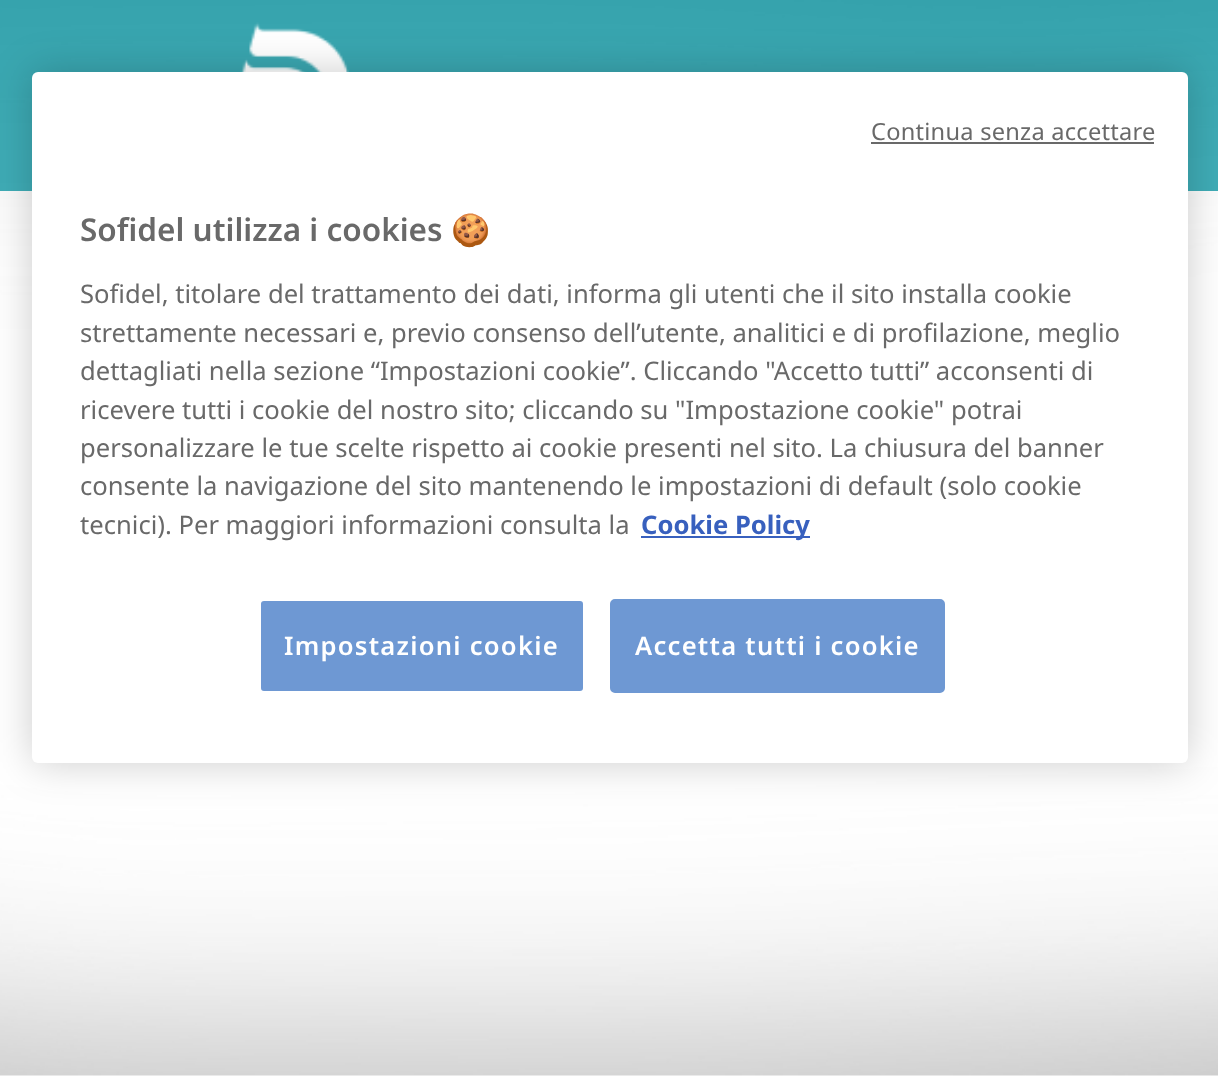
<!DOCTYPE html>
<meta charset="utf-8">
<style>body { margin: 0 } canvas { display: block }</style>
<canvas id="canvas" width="1218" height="1081"></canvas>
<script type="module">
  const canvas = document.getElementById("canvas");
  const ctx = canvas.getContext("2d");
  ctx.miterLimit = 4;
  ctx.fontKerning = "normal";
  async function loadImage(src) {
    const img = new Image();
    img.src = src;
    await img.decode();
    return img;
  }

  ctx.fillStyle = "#ffffff";
  ctx.fillRect(0, 0, 1218, 1081);
  ctx.drawImage(await loadImage("img1.png"), 0, 0, 1218, 1076);
  ctx.fillStyle = "rgba(0, 145, 159, 0.75)";
  ctx.fillRect(0, 0, 1218, 191);
  ctx.drawImage(await loadImage("img2.png"), 240, 22, 109, 50);
  ctx.fillStyle = "rgba(0, 0, 0, 0.2)";
  ctx.filter = "blur(20px)";
  ctx.beginPath();
  ctx.roundRect(32, 72, 1156, 691, 6);
  ctx.fill();
  ctx.filter = "none";
  ctx.fillStyle = "#ffffff";
  ctx.beginPath();
  ctx.roundRect(32, 72, 1156, 691, 6);
  ctx.fill();
  ctx.letterSpacing = "0.25px";
  ctx.font = "23.6px Noto Sans";
  ctx.fillStyle = "#696969";
  ctx.fillText("Continua senza accettare", 871, 140);
  ctx.fillRect(871, 142, 283, 2);
  ctx.letterSpacing = "0px";
  ctx.font = "600 31.5px Noto Sans";
  ctx.fillText("Sofidel utilizza i cookies", 80, 241);
  ctx.font = "31.5px Noto Color Emoji";
  ctx.fillText("🍪", 451, 241);
  ctx.font = "25.6px Noto Sans";
  ctx.fillText("Sofidel, titolare del trattamento dei dati, informa gli utenti che il sito installa cookie", 80, 303);
  ctx.fillText("strettamente necessari e, previo consenso dell’utente, analitici e di profilazione, meglio", 80, 342);
  ctx.fillText("dettagliati nella sezione “Impostazioni cookie”. Cliccando \"Accetto tutti” acconsenti di", 80, 380);
  ctx.fillText("ricevere tutti i cookie del nostro sito; cliccando su \"Impostazione cookie\" potrai", 80, 419);
  ctx.fillText("personalizzare le tue scelte rispetto ai cookie presenti nel sito. La chiusura del banner", 80, 457);
  ctx.fillText("consente la navigazione del sito mantenendo le impostazioni di default (solo cookie", 80, 495);
  ctx.fillText("tecnici). Per maggiori informazioni consulta la", 80, 534);
  ctx.fillStyle = "#3860be";
  ctx.fillRect(641, 536, 169, 2);
  ctx.font = "bold 25.6px Noto Sans";
  ctx.fillText("Cookie Policy", 641, 534);
  ctx.fillStyle = "#6e98d3";
  ctx.beginPath();
  ctx.roundRect(260, 600, 324, 92, 4);
  ctx.fill();
  ctx.strokeStyle = "#ffffff";
  ctx.lineWidth = 2;
  ctx.stroke();
  ctx.letterSpacing = "1.25px";
  ctx.font = "600 25.6px Noto Sans";
  ctx.fillStyle = "#ffffff";
  ctx.fillText("Impostazioni cookie", 284, 655);
  ctx.fillStyle = "#6e98d3";
  ctx.beginPath();
  ctx.roundRect(611, 600, 333, 92, 4);
  ctx.fill();
  ctx.strokeStyle = "#6e98d3";
  ctx.stroke();
  ctx.fillStyle = "#ffffff";
  ctx.fillText("Accetta tutti i cookie", 635, 655);
</script>
